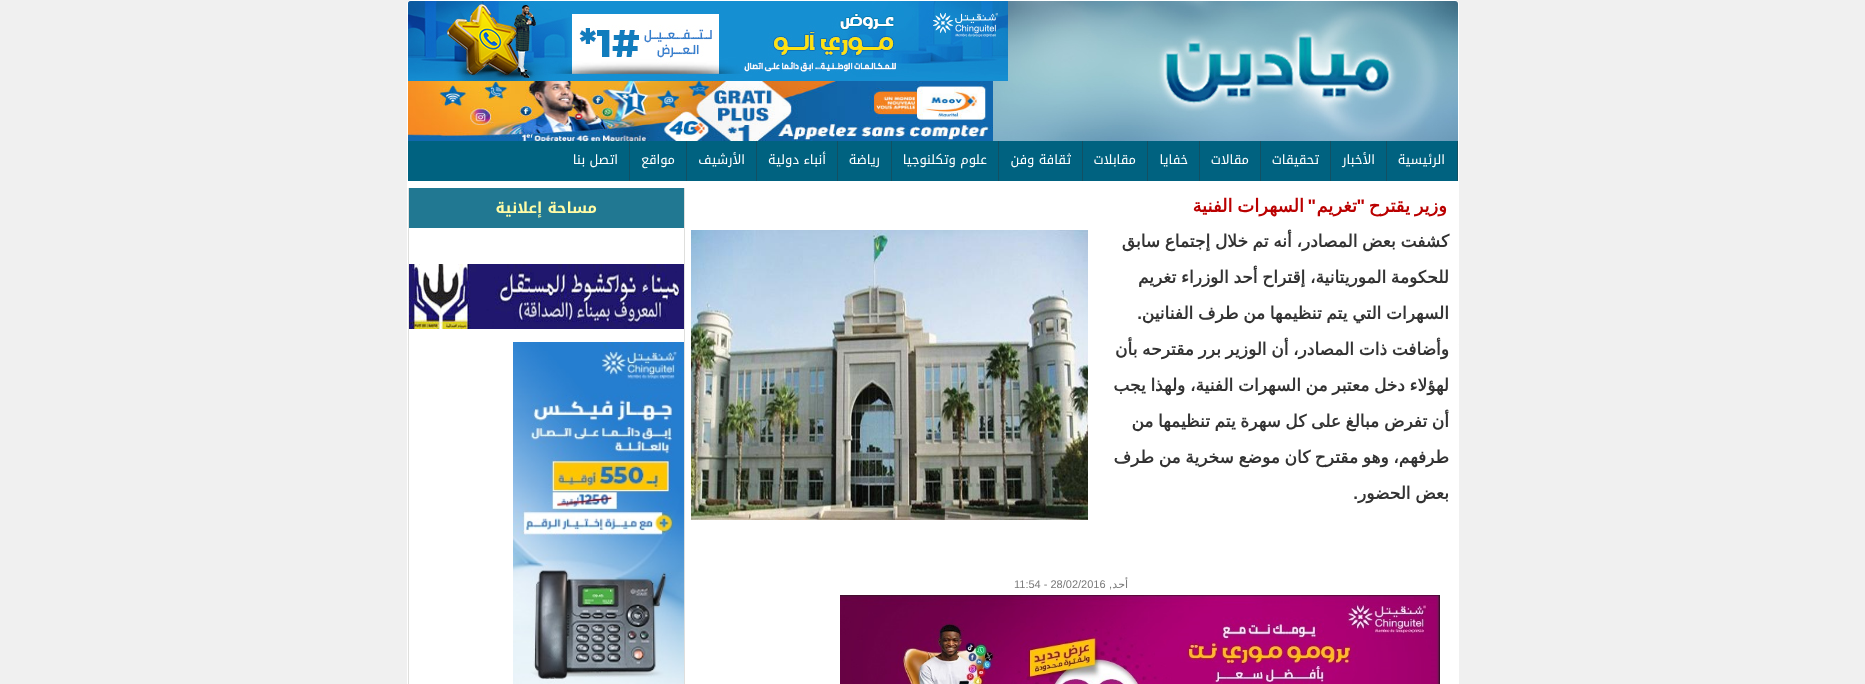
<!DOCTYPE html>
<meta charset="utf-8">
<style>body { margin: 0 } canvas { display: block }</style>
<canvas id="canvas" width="1865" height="684"></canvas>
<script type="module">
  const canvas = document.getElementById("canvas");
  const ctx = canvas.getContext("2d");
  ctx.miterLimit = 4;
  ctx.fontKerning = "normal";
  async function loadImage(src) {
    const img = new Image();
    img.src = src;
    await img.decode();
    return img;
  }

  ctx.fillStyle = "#f0f0f0";
  ctx.fillRect(0, 0, 1865, 684);
  ctx.fillStyle = "#ffffff";
  ctx.beginPath();
  ctx.roundRect(407.5, 0.5, 1051, 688, 3.5);
  ctx.fill();
  ctx.strokeStyle = "#ffffff";
  ctx.stroke();
  ctx.drawImage(await loadImage("img1.png"), 408, 1, 1050, 140);
  ctx.drawImage(await loadImage("img2.png"), 408, 1, 600, 80);
  ctx.drawImage(await loadImage("img3.png"), 408, 81, 585, 60);
  ctx.fillStyle = "#006280";
  ctx.fillRect(408, 141, 1049, 40);
  ctx.fillStyle = "#125063";
  ctx.fillRect(1457, 141, 1, 40);
  ctx.direction = "rtl";
  ctx.font = "13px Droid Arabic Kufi";
  ctx.fillStyle = "#ffffff";
  ctx.fillText("الرئيسية", 1445, 164);
  ctx.fillStyle = "#125063";
  ctx.fillRect(1386, 141, 1, 40);
  ctx.fillStyle = "#ffffff";
  ctx.fillText("الأخبار", 1375, 164);
  ctx.fillStyle = "#125063";
  ctx.fillRect(1330, 141, 1, 40);
  ctx.fillStyle = "#ffffff";
  ctx.fillText("تحقيقات", 1319, 164);
  ctx.fillStyle = "#125063";
  ctx.fillRect(1260, 141, 1, 40);
  ctx.fillStyle = "#ffffff";
  ctx.fillText("مقالات", 1249, 164);
  ctx.fillStyle = "#125063";
  ctx.fillRect(1199, 141, 1, 40);
  ctx.fillStyle = "#ffffff";
  ctx.fillText("خفايا", 1188, 164);
  ctx.fillStyle = "#125063";
  ctx.fillRect(1147, 141, 1, 40);
  ctx.fillStyle = "#ffffff";
  ctx.fillText("مقابلات", 1136, 164);
  ctx.fillStyle = "#125063";
  ctx.fillRect(1082, 141, 1, 40);
  ctx.fillStyle = "#ffffff";
  ctx.fillText("ثقافة وفن", 1071, 164);
  ctx.fillStyle = "#125063";
  ctx.fillRect(998, 141, 1, 40);
  ctx.fillStyle = "#ffffff";
  ctx.fillText("علوم وتكلنوجيا", 987, 164);
  ctx.fillStyle = "#125063";
  ctx.fillRect(891, 141, 1, 40);
  ctx.fillStyle = "#ffffff";
  ctx.fillText("رياضة", 880, 164);
  ctx.fillStyle = "#125063";
  ctx.fillRect(837, 141, 1, 40);
  ctx.fillStyle = "#ffffff";
  ctx.fillText("أنباء دولية", 826, 164);
  ctx.fillStyle = "#125063";
  ctx.fillRect(756, 141, 1, 40);
  ctx.fillStyle = "#ffffff";
  ctx.fillText("الأرشيف", 745, 164);
  ctx.fillStyle = "#125063";
  ctx.fillRect(686, 141, 1, 40);
  ctx.fillStyle = "#ffffff";
  ctx.fillText("مواقع", 675, 164);
  ctx.fillStyle = "#125063";
  ctx.fillRect(629, 141, 1, 40);
  ctx.fillStyle = "#ffffff";
  ctx.fillText("اتصل بنا", 618, 164);
  ctx.wordSpacing = "-1px";
  ctx.font = "bold 18px DejaVu Sans";
  ctx.fillStyle = "#ba0000";
  ctx.fillText("وزير يقترح", 1447, 212);
  ctx.wordSpacing = "0px";
  ctx.font = "bold 18px Liberation Sans";
  ctx.fillText("\"", 1365, 212);
  ctx.font = "bold 18px DejaVu Sans";
  ctx.fillText("تغريم", 1357, 212);
  ctx.font = "bold 18px Liberation Sans";
  ctx.fillText("\"", 1316, 212);
  ctx.wordSpacing = "-1px";
  ctx.font = "bold 18px DejaVu Sans";
  ctx.fillText("السهرات الفنية", 1304, 212);
  ctx.save();
  ctx.beginPath();
  ctx.rect(685, 188, 765, 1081);
  ctx.clip();
  ctx.wordSpacing = "-0.75px";
  ctx.font = "bold 17px DejaVu Sans";
  ctx.fillStyle = "#333333";
  ctx.fillText("كشفت بعض المصادر، أنه تم خلال إجتماع سابق", 1449, 247);
  ctx.fillText("للحكومة الموريتانية، إقتراح أحد الوزراء تغريم", 1449, 283);
  ctx.fillText("السهرات التي يتم تنظيمها من طرف الفنانين", 1449, 319);
  ctx.restore();
  ctx.wordSpacing = "0px";
  ctx.font = "bold 17px Liberation Sans";
  ctx.fillStyle = "#333333";
  ctx.fillText(".", 1142, 319);
  ctx.save();
  ctx.beginPath();
  ctx.rect(685, 188, 765, 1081);
  ctx.clip();
  ctx.wordSpacing = "-0.75px";
  ctx.font = "bold 17px DejaVu Sans";
  ctx.fillText("وأضافت ذات المصادر، أن الوزير برر مقترحه بأن", 1449, 355);
  ctx.fillText("لهؤلاء دخل معتبر من السهرات الفنية، ولهذا يجب", 1449, 391);
  ctx.fillText("أن تفرض مبالغ على كل سهرة يتم تنظيمها من", 1449, 427);
  ctx.fillText("طرفهم، وهو مقترح كان موضع سخرية من طرف", 1449, 463);
  ctx.restore();
  ctx.fillText(".", 1358, 499);
  ctx.wordSpacing = "-0.75px";
  ctx.font = "bold 17px DejaVu Sans";
  ctx.fillText("بعض الحضور", 1449, 499);
  ctx.drawImage(await loadImage("img4.png"), 691, 230, 397, 290);
  ctx.wordSpacing = "0px";
  ctx.font = "11px DejaVu Sans";
  ctx.fillStyle = "#7a7a7a";
  ctx.fillText("أحد", 1128, 588);
  ctx.font = "11px Liberation Sans";
  ctx.fillText(",", 1112, 588);
  ctx.direction = "ltr";
  ctx.fillText("11:54 - 28/02/2016", 1014, 588);
  ctx.drawImage(await loadImage("img5.png"), 840, 595, 600, 89);
  ctx.fillStyle = "#dfdfdd";
  ctx.fillRect(684, 188, 1, 496);
  ctx.fillRect(408, 188, 1, 496);
  ctx.fillStyle = "#217892";
  ctx.fillRect(409, 188, 275, 40);
  ctx.direction = "rtl";
  ctx.font = "bold 15px Droid Arabic Kufi";
  ctx.fillStyle = "#fffca6";
  ctx.fillText("مساحة إعلانية", 597, 213);
  ctx.drawImage(await loadImage("img6.png"), 409, 264, 275, 65);
  ctx.drawImage(await loadImage("img7.png"), 513, 342, 171, 342);
</script>
